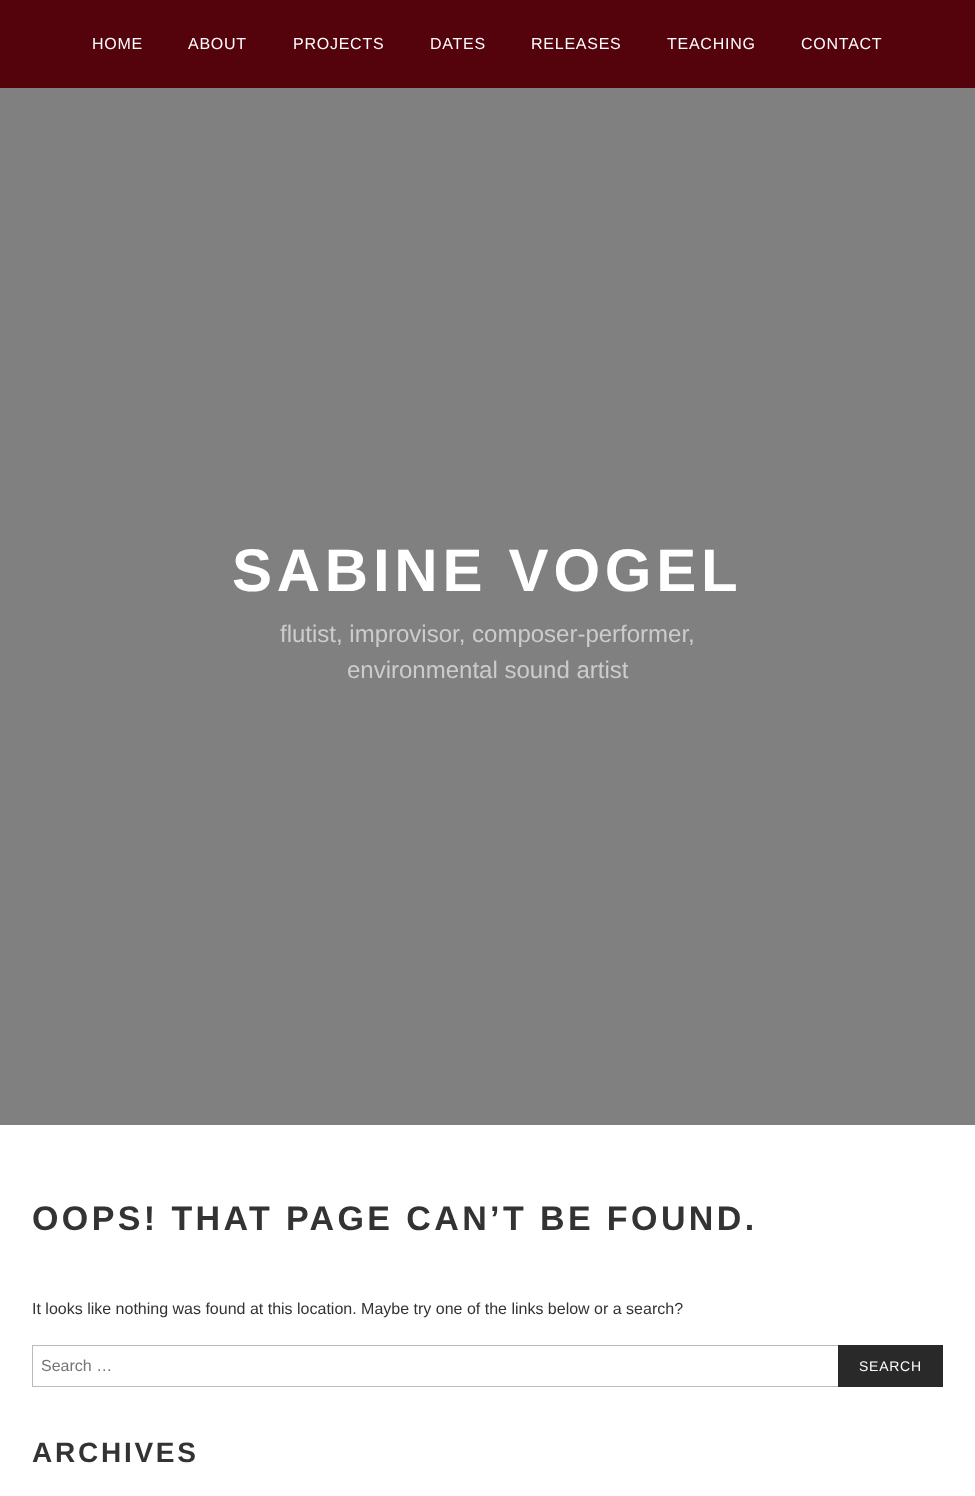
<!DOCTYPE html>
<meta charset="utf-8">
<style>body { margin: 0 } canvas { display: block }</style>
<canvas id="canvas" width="975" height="1496"></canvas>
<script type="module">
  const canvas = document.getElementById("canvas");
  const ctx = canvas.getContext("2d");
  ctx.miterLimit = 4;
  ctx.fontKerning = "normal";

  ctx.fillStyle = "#ffffff";
  ctx.fillRect(0, 0, 975, 1496);
  ctx.fillStyle = "#54030c";
  ctx.fillRect(0, 0, 975, 88);
  ctx.letterSpacing = "0.75px";
  ctx.font = "16px Liberation Sans";
  ctx.fillStyle = "#ffffff";
  ctx.fillText("HOME", 92, 49);
  ctx.fillText("ABOUT", 188, 49);
  ctx.fillText("PROJECTS", 293, 49);
  ctx.fillText("DATES", 430, 49);
  ctx.fillText("RELEASES", 531, 49);
  ctx.fillText("TEACHING", 667, 49);
  ctx.fillText("CONTACT", 801, 49);
  ctx.fillStyle = "#808080";
  ctx.fillRect(0, 88, 975, 1037);
  ctx.letterSpacing = "4.75px";
  ctx.font = "bold 60px Liberation Sans";
  ctx.fillStyle = "#ffffff";
  ctx.fillText("SABINE VOGEL", 232, 591);
  ctx.letterSpacing = "0px";
  ctx.font = "24px Liberation Sans";
  ctx.fillStyle = "#cccccc";
  ctx.fillText("flutist, improvisor, composer-performer,", 280, 642);
  ctx.fillText("environmental sound artist", 347, 678);
  ctx.letterSpacing = "3.4px";
  ctx.font = "bold 34px Liberation Sans";
  ctx.fillStyle = "#333333";
  ctx.fillText("OOPS! THAT PAGE CAN’T BE FOUND.", 32, 1230);
  ctx.letterSpacing = "0px";
  ctx.font = "16px Liberation Sans";
  ctx.fillText("It looks like nothing was found at this location. Maybe try one of the links below or a search?", 32, 1314);
  ctx.strokeStyle = "#bbbbbb";
  ctx.strokeRect(32.5, 1345.5, 910, 41);
  ctx.fillStyle = "#757575";
  ctx.fillText("Search …", 41, 1371);
  ctx.fillStyle = "#29292a";
  ctx.fillRect(838, 1345, 105, 42);
  ctx.letterSpacing = "0.75px";
  ctx.font = "14px Liberation Sans";
  ctx.fillStyle = "#ffffff";
  ctx.fillText("SEARCH", 859, 1371);
  ctx.letterSpacing = "2.75px";
  ctx.font = "bold 28px Liberation Sans";
  ctx.fillStyle = "#333333";
  ctx.fillText("ARCHIVES", 32, 1462);
</script>
